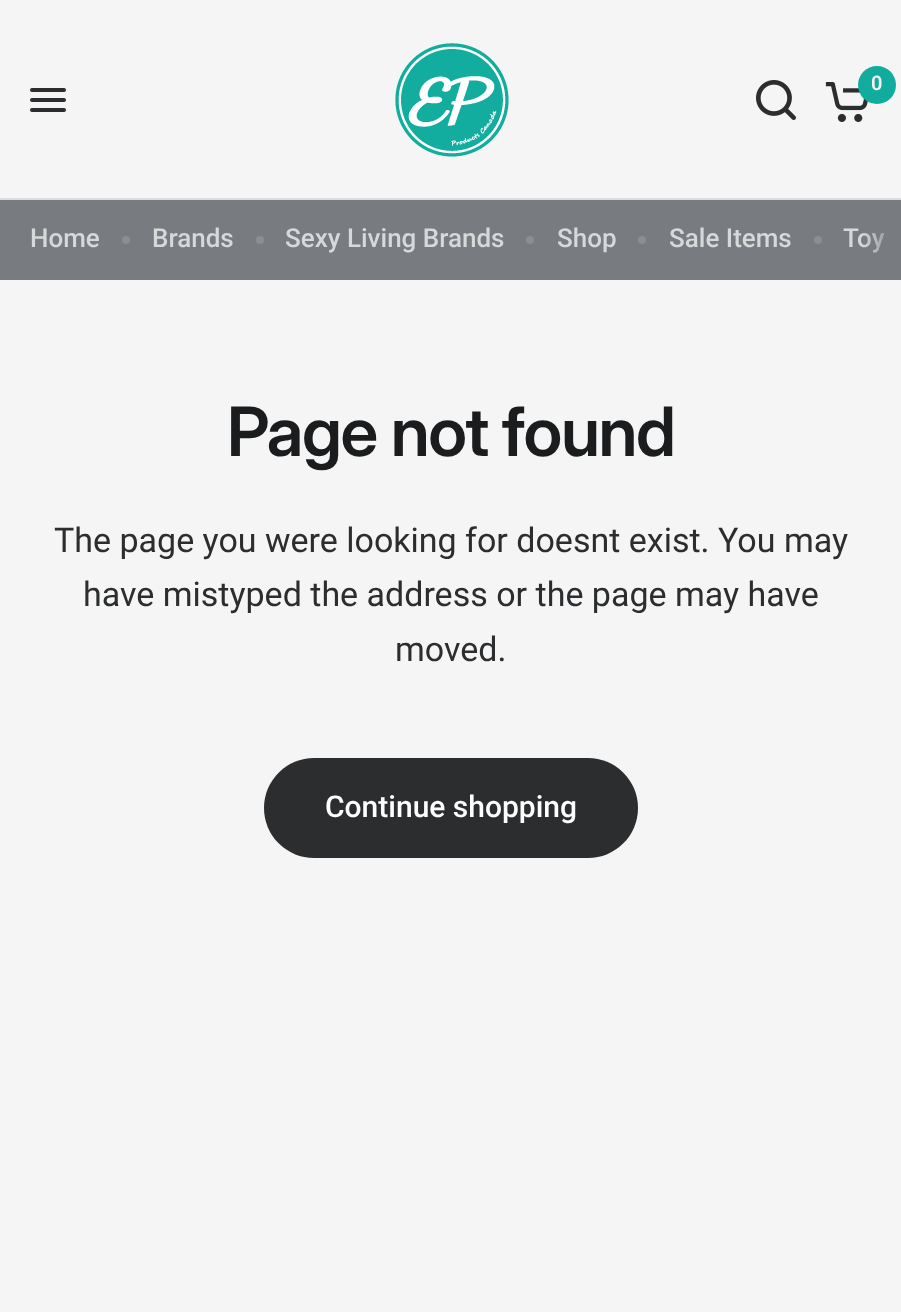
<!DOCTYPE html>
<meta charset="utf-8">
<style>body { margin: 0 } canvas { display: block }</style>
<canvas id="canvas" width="901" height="1312"></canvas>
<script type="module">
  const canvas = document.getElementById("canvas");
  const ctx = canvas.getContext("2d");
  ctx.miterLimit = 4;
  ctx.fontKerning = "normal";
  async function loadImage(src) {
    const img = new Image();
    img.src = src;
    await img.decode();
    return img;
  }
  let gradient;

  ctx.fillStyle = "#f5f5f5";
  ctx.fillRect(0, 0, 901, 1312);
  ctx.drawImage(await loadImage("img1.png"), 395, 43, 114, 114);
  ctx.drawImage(await loadImage("img2.png"), 756, 80, 40, 40);
  ctx.drawImage(await loadImage("img3.png"), 825, 82, 43, 40);
  ctx.fillStyle = "#12ac9f";
  ctx.beginPath();
  ctx.arc(877, 85, 19, 0, Math.PI * 2);
  ctx.fill();
  ctx.font = "600 20px Roboto";
  ctx.fillStyle = "#f5f5f5";
  ctx.fillText("0", 871, 90);
  ctx.fillStyle = "#2c2d2e";
  ctx.beginPath();
  ctx.roundRect(30, 88, 36, 4, 2);
  ctx.fill();
  ctx.beginPath();
  ctx.roundRect(30, 98, 36, 4, 2);
  ctx.fill();
  ctx.beginPath();
  ctx.roundRect(30, 108, 36, 4, 2);
  ctx.fill();
  ctx.fillStyle = "#dadce0";
  ctx.fillRect(0, 198, 901, 2);
  ctx.fillStyle = "#787c80";
  ctx.fillRect(0, 200, 901, 80);
  ctx.font = "500 26px Roboto";
  ctx.fillStyle = "#d6d8d9";
  ctx.fillText("Home", 30, 247);
  ctx.fillStyle = "#8b8e92";
  ctx.beginPath();
  ctx.arc(126, 240, 4, 0, Math.PI * 2);
  ctx.fill();
  ctx.fillStyle = "#d6d8d9";
  ctx.fillText("Brands", 152, 247);
  ctx.fillStyle = "#8b8e92";
  ctx.beginPath();
  ctx.arc(260, 240, 4, 0, Math.PI * 2);
  ctx.fill();
  ctx.fillStyle = "#d6d8d9";
  ctx.fillText("Sexy Living Brands", 285, 247);
  ctx.fillStyle = "#8b8e92";
  ctx.beginPath();
  ctx.arc(530, 240, 4, 0, Math.PI * 2);
  ctx.fill();
  ctx.fillStyle = "#d6d8d9";
  ctx.fillText("Shop", 557, 247);
  ctx.fillStyle = "#8b8e92";
  ctx.beginPath();
  ctx.arc(642, 240, 4, 0, Math.PI * 2);
  ctx.fill();
  ctx.fillStyle = "#d6d8d9";
  ctx.fillText("Sale Items", 669, 247);
  ctx.fillStyle = "#8b8e92";
  ctx.beginPath();
  ctx.arc(818, 240, 4, 0, Math.PI * 2);
  ctx.fill();
  ctx.fillStyle = "#d6d8d9";
  ctx.fillText("Toy", 843, 247);
  gradient = ctx.createLinearGradient(862, 240, 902, 240);
  gradient.addColorStop(0, "rgba(120, 124, 128, 0)");
  gradient.addColorStop(1, "#787c80");
  ctx.fillStyle = gradient;
  ctx.fillRect(863, 233, 22, 20);
  ctx.letterSpacing = "-1.4px";
  ctx.font = "600 68px Inter";
  ctx.fillStyle = "#1a1c1d";
  ctx.fillText("Page not found", 227, 456);
  ctx.letterSpacing = "0px";
  ctx.font = "34px Roboto";
  ctx.fillStyle = "#2c2d2e";
  ctx.fillText("The page you were looking for doesnt exist. You may", 54, 552);
  ctx.fillText("have mistyped the address or the page may have", 83, 606);
  ctx.fillText("moved.", 395, 661);
  ctx.beginPath();
  ctx.roundRect(264, 758, 374, 100, 50);
  ctx.fill();
  ctx.font = "500 30px Roboto";
  ctx.fillStyle = "#ffffff";
  ctx.fillText("Continue shopping", 325, 817);
</script>
